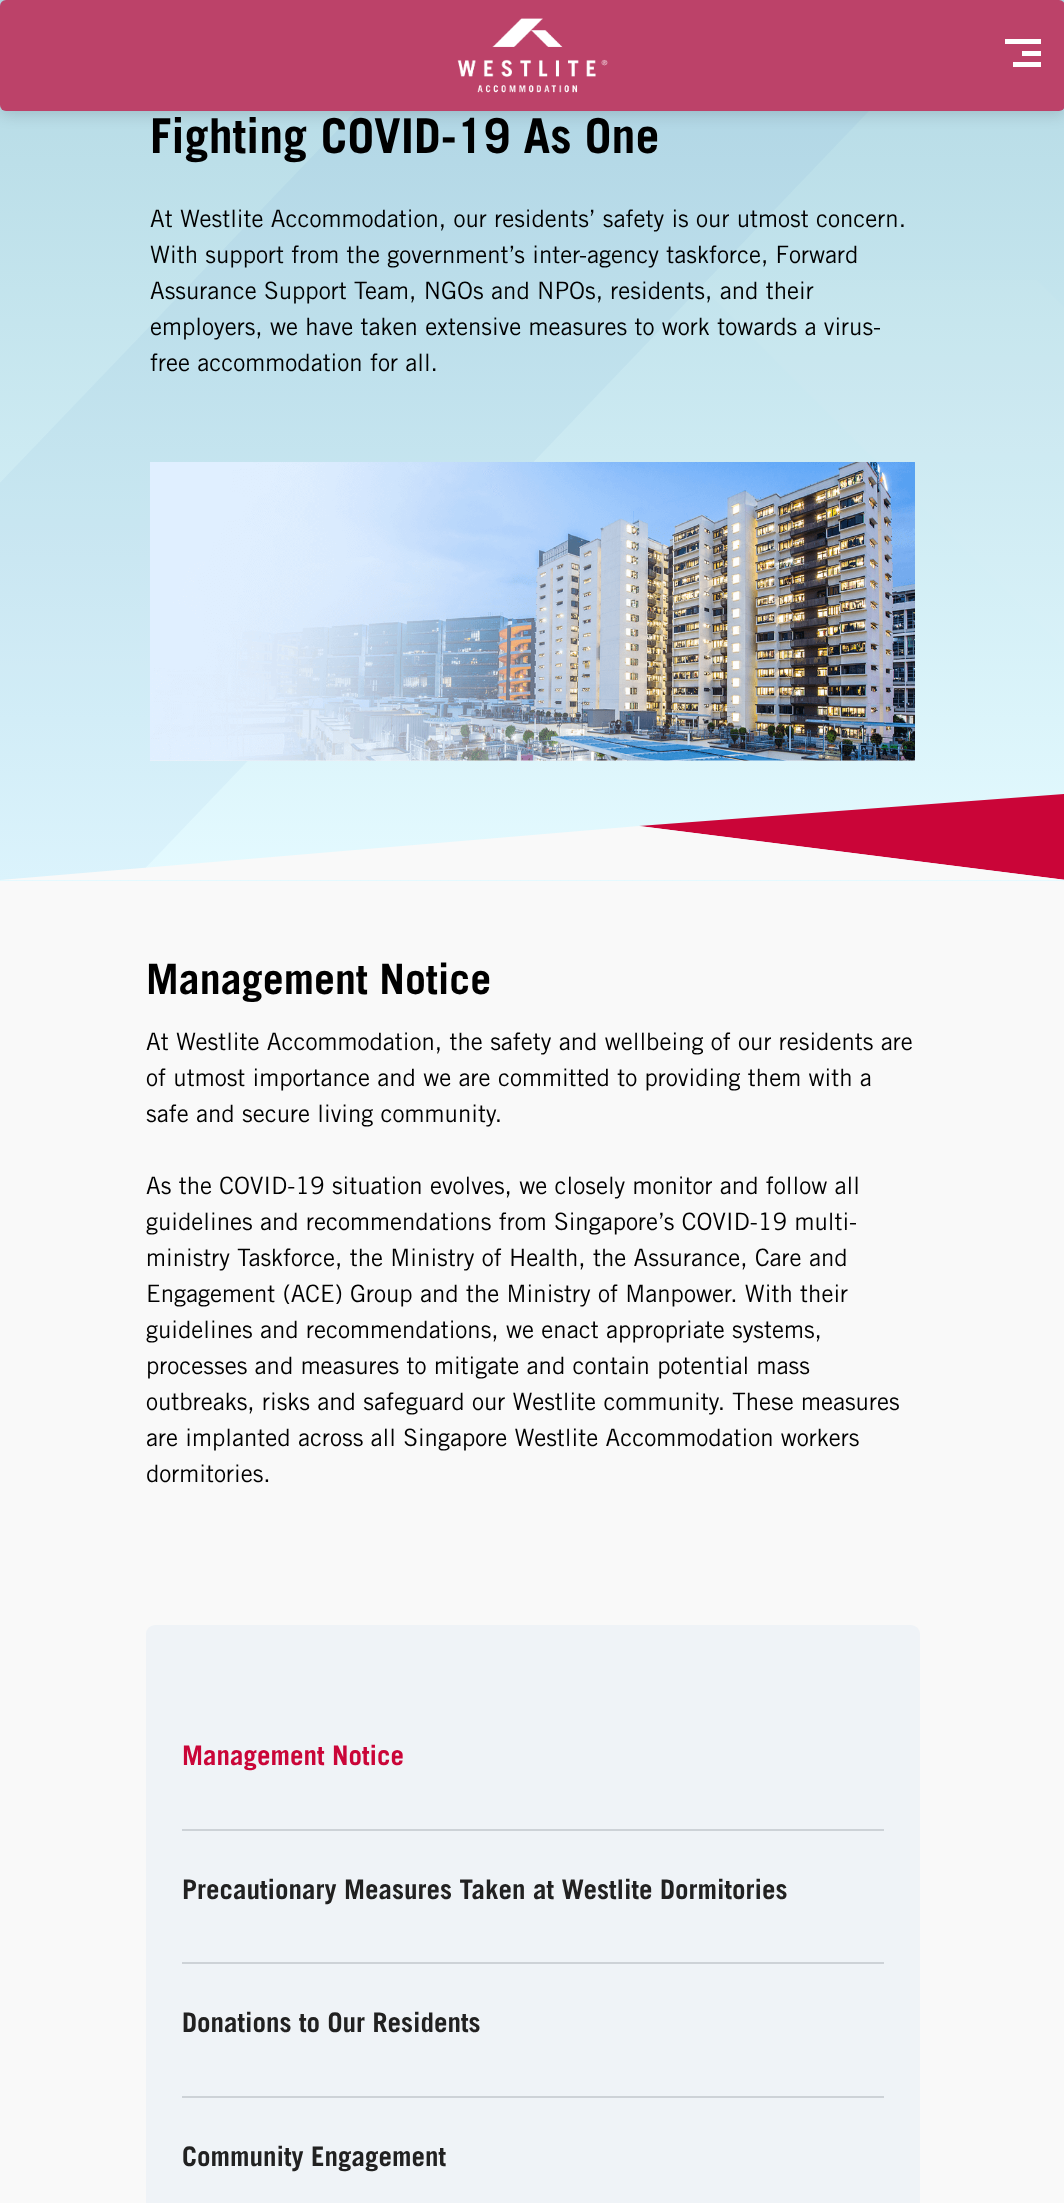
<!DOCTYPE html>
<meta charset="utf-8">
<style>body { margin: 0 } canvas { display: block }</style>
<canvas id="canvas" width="1064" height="2203"></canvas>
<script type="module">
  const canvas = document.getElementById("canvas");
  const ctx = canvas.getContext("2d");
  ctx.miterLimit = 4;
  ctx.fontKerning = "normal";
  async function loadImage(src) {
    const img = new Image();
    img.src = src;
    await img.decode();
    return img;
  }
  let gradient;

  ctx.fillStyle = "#f9f9f9";
  ctx.fillRect(0, 0, 1064, 2203);
  gradient = ctx.createLinearGradient(533, 881, 533, 0);
  gradient.addColorStop(0, "#e4faff");
  gradient.addColorStop(1, "#b3d9e4");
  ctx.fillStyle = gradient;
  ctx.fillRect(0, 0, 1064, 881);
  ctx.fillStyle = "rgba(57, 123, 199, 0.05)";
  ctx.beginPath();
  ctx.moveTo(462, 0);
  ctx.lineTo(-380, 880);
  ctx.lineTo(134, 880);
  ctx.lineTo(975, 0);
  ctx.closePath();
  ctx.fill("evenodd");
  ctx.fillStyle = "rgba(0, 0, 0, 0.15)";
  ctx.filter = "blur(7.5px)";
  ctx.beginPath();
  ctx.roundRect(0, 3, 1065, 111, 6);
  ctx.fill();
  ctx.filter = "none";
  ctx.fillStyle = "#bc4269";
  ctx.beginPath();
  ctx.roundRect(0, 0, 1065, 111, 6);
  ctx.fill();
  ctx.drawImage(await loadImage("img1.png"), 457, 18, 151, 75);
  ctx.fillStyle = "#ffffff";
  ctx.fillRect(1005, 39, 36, 5);
  ctx.fillRect(1022, 51, 19, 5);
  ctx.fillRect(1013, 62, 28, 5);
  ctx.fillStyle = "rgba(255, 255, 255, 0.04)";
  ctx.beginPath();
  ctx.moveTo(695, 280);
  ctx.lineTo(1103, 688);
  ctx.lineTo(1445, 688);
  ctx.lineTo(1037, 280);
  ctx.closePath();
  ctx.fill("evenodd");
  ctx.font = "bold 48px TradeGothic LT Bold";
  ctx.fillStyle = "#000000";
  ctx.fillText("Fighting COVID-19 As One", 150, 153);
  ctx.font = "24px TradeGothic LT";
  ctx.fillText("At Westlite Accommodation, our residents’ safety is our utmost concern.", 150, 227);
  ctx.fillText("With support from the government’s inter-agency taskforce, Forward", 150, 263);
  ctx.fillText("Assurance Support Team, NGOs and NPOs, residents, and their", 150, 299);
  ctx.fillText("employers, we have taken extensive measures to work towards a virus-", 150, 335);
  ctx.fillText("free accommodation for all.", 150, 371);
  ctx.fillStyle = "#eff3f7";
  ctx.fillRect(150, 760, 765, 1);
  ctx.drawImage(await loadImage("img2.png"), 150, 462, 765, 299);
  ctx.fillStyle = "#ca0538";
  ctx.beginPath();
  ctx.moveTo(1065, 794);
  ctx.lineTo(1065, 880);
  ctx.lineTo(639, 826);
  ctx.closePath();
  ctx.fill();
  ctx.fillStyle = "#f9f9f9";
  ctx.beginPath();
  ctx.moveTo(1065, 880);
  ctx.lineTo(0, 880);
  ctx.lineTo(639, 826);
  ctx.closePath();
  ctx.fill();
  ctx.font = "bold 42px TradeGothic LT Bold";
  ctx.fillStyle = "#000000";
  ctx.fillText("Management Notice", 146, 994);
  ctx.font = "24px TradeGothic LT";
  ctx.fillText("At Westlite Accommodation, the safety and wellbeing of our residents are", 146, 1050);
  ctx.fillText("of utmost importance and we are committed to providing them with a", 146, 1086);
  ctx.fillText("safe and secure living community.", 146, 1122);
  ctx.fillText("As the COVID-19 situation evolves, we closely monitor and follow all", 146, 1194);
  ctx.fillText("guidelines and recommendations from Singapore’s COVID-19 multi-", 146, 1230);
  ctx.fillText("ministry Taskforce, the Ministry of Health, the Assurance, Care and", 146, 1266);
  ctx.fillText("Engagement (ACE) Group and the Ministry of Manpower. With their", 146, 1302);
  ctx.fillText("guidelines and recommendations, we enact appropriate systems,", 146, 1338);
  ctx.fillText("processes and measures to mitigate and contain potential mass", 146, 1374);
  ctx.fillText("outbreaks, risks and safeguard our Westlite community. These measures", 146, 1410);
  ctx.fillText("are implanted across all Singapore Westlite Accommodation workers", 146, 1446);
  ctx.fillText("dormitories.", 146, 1482);
  ctx.fillStyle = "#eff3f7";
  ctx.beginPath();
  ctx.roundRect(146, 1625, 774, 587, 9);
  ctx.fill();
  ctx.fillStyle = "#cdd2d7";
  ctx.fillRect(182, 1829, 702, 2);
  ctx.font = "bold 27px TradeGothic LT Bold";
  ctx.fillStyle = "#ca0538";
  ctx.fillText("Management Notice", 182, 1765);
  ctx.fillStyle = "#cdd2d7";
  ctx.fillRect(182, 1962, 702, 2);
  ctx.fillStyle = "#212121";
  ctx.fillText("Precautionary Measures Taken at Westlite Dormitories", 182, 1899);
  ctx.fillStyle = "#cdd2d7";
  ctx.fillRect(182, 2096, 702, 2);
  ctx.fillStyle = "#212121";
  ctx.fillText("Donations to Our Residents", 182, 2032);
  ctx.fillText("Community Engagement", 182, 2166);
</script>
